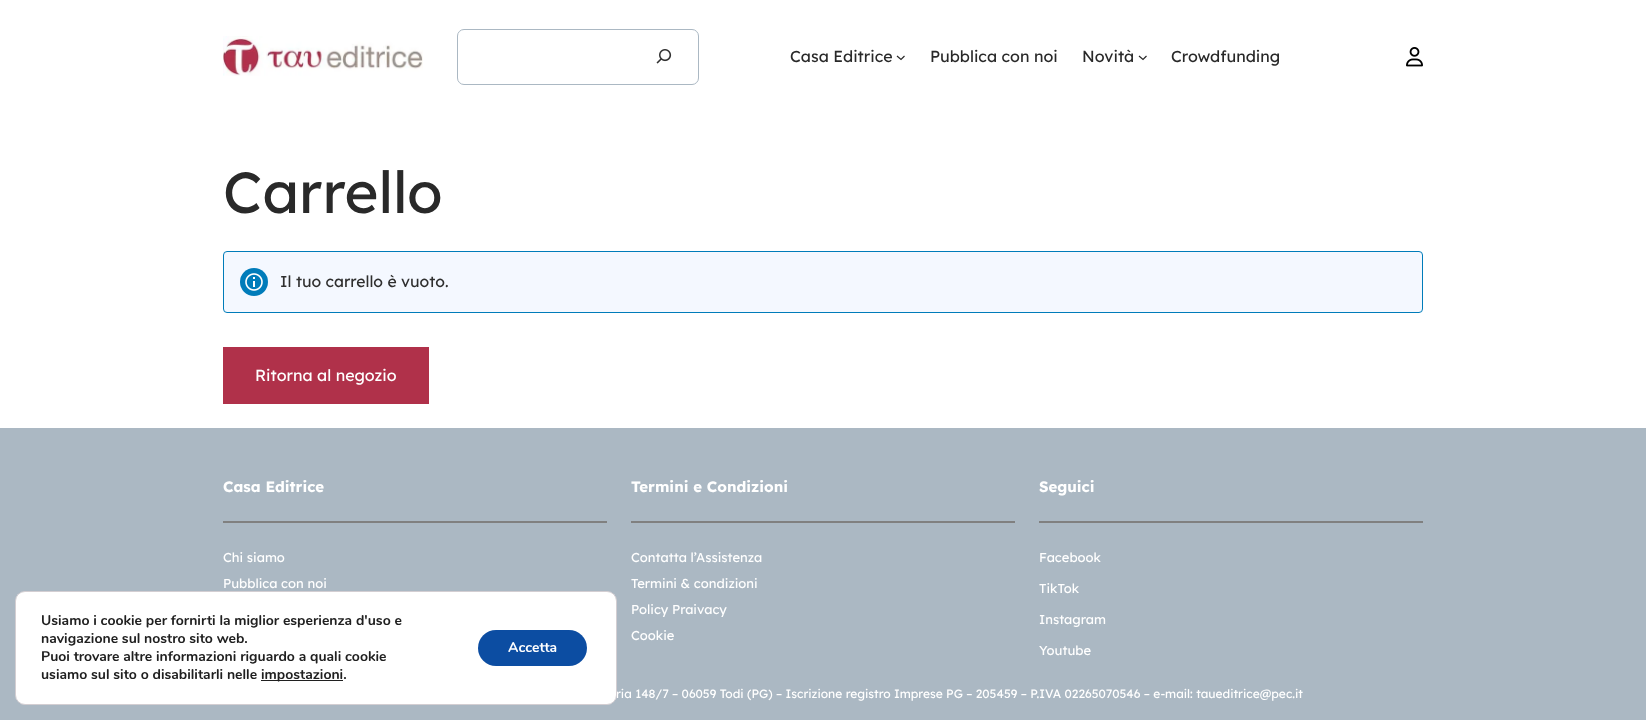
<!DOCTYPE html>
<meta charset="utf-8">
<style>body { margin: 0 } canvas { display: block }</style>
<canvas id="canvas" width="1646" height="720"></canvas>
<script type="module">
  const canvas = document.getElementById("canvas");
  const ctx = canvas.getContext("2d");
  ctx.miterLimit = 4;
  ctx.fontKerning = "normal";
  async function loadImage(src) {
    const img = new Image();
    img.src = src;
    await img.decode();
    return img;
  }

  ctx.fillStyle = "#ffffff";
  ctx.fillRect(0, 0, 1646, 720);
  ctx.drawImage(await loadImage("img1.png"), 223, 36, 200, 40);
  ctx.beginPath();
  ctx.roundRect(457.5, 29.5, 241, 55, 6.5);
  ctx.strokeStyle = "#abb8c3";
  ctx.stroke();
  ctx.drawImage(await loadImage("img2.png"), 656, 49, 16, 15);
  ctx.font = "16px Lexend";
  ctx.fillStyle = "#292929";
  ctx.fillText("Casa Editrice", 790, 62);
  ctx.beginPath();
  ctx.moveTo(897, 56);
  ctx.lineTo(901, 59.5);
  ctx.lineTo(904.5, 56);
  ctx.strokeStyle = "#292929";
  ctx.lineWidth = 1.2;
  ctx.stroke();
  ctx.fillText("Pubblica con noi", 930, 62);
  ctx.fillText("Novità", 1082, 62);
  ctx.beginPath();
  ctx.moveTo(1139, 56);
  ctx.lineTo(1143, 59.5);
  ctx.lineTo(1146.5, 56);
  ctx.stroke();
  ctx.fillText("Crowdfunding", 1171, 62);
  ctx.drawImage(await loadImage("img3.png"), 1406, 47, 17, 20);
  ctx.font = "58px Lexend";
  ctx.fillText("Carrello", 223, 213);
  ctx.fillStyle = "#f4f8ff";
  ctx.beginPath();
  ctx.roundRect(223.5, 251.5, 1199, 61, 3.5);
  ctx.fill();
  ctx.strokeStyle = "#007cba";
  ctx.lineWidth = 1;
  ctx.stroke();
  ctx.fillStyle = "#007cba";
  ctx.beginPath();
  ctx.arc(254, 282, 14, 0, Math.PI * 2);
  ctx.fill();
  ctx.drawImage(await loadImage("img4.png"), 245, 273, 18, 18);
  ctx.font = "15.75px Lexend";
  ctx.fillStyle = "#2f2f2f";
  ctx.fillText("Il tuo carrello è vuoto.", 280, 287);
  ctx.fillStyle = "#b0314a";
  ctx.fillRect(223, 347, 206, 57);
  ctx.font = "16px Lexend";
  ctx.fillStyle = "#ffffff";
  ctx.fillText("Ritorna al negozio", 255, 381);
  ctx.fillStyle = "#abb8c3";
  ctx.fillRect(0, 428, 1646, 292);
  ctx.font = "bold 15px Lexend";
  ctx.fillStyle = "#ffffff";
  ctx.fillText("Casa Editrice", 223, 492);
  ctx.fillStyle = "#808080";
  ctx.fillRect(223, 521, 384, 2);
  ctx.font = "13px Lexend";
  ctx.fillStyle = "#ffffff";
  ctx.fillText("Chi siamo", 223, 562);
  ctx.fillText("Pubblica con noi", 223, 588);
  ctx.font = "bold 15px Lexend";
  ctx.fillText("Termini e Condizioni", 631, 492);
  ctx.fillStyle = "#808080";
  ctx.fillRect(631, 521, 384, 2);
  ctx.font = "13px Lexend";
  ctx.fillStyle = "#ffffff";
  ctx.fillText("Contatta l’Assistenza", 631, 562);
  ctx.fillText("Termini & condizioni", 631, 588);
  ctx.fillText("Policy Praivacy", 631, 614);
  ctx.fillText("Cookie", 631, 640);
  ctx.font = "bold 15px Lexend";
  ctx.fillText("Seguici", 1039, 492);
  ctx.fillStyle = "#808080";
  ctx.fillRect(1039, 521, 384, 2);
  ctx.font = "13px Lexend";
  ctx.fillStyle = "#ffffff";
  ctx.fillText("Facebook", 1039, 562);
  ctx.fillText("TikTok", 1039, 593);
  ctx.fillText("Instagram", 1039, 624);
  ctx.fillText("Youtube", 1039, 655);
  ctx.font = "12px Lexend";
  ctx.fillText("ria 148/7 – 06059 Todi (PG) – Iscrizione registro Imprese PG – 205459 – P.IVA 02265070546 – e-mail: taueditrice@pec.it", 616, 698);
  ctx.beginPath();
  ctx.roundRect(15.5, 591.5, 601, 113, 9.5);
  ctx.fill();
  ctx.strokeStyle = "#d3ced2";
  ctx.stroke();
  ctx.font = "bold 14px Nunito";
  ctx.fillStyle = "#202020";
  ctx.fillText("Usiamo i cookie per fornirti la miglior esperienza d'uso e", 41, 625);
  ctx.fillText("navigazione sul nostro sito web.", 41, 643);
  ctx.fillText("Puoi trovare altre informazioni riguardo a quali cookie", 41, 661);
  ctx.fillText("usiamo sul sito o disabilitarli nelle", 41, 679);
  ctx.fillRect(261, 680, 82, 1);
  ctx.fillText("impostazioni.", 261, 679);
  ctx.fillStyle = "#0c4da2";
  ctx.beginPath();
  ctx.roundRect(478, 630, 109, 36, 18);
  ctx.fill();
  ctx.fillStyle = "#ffffff";
  ctx.fillText("Accetta", 508, 652);
</script>
